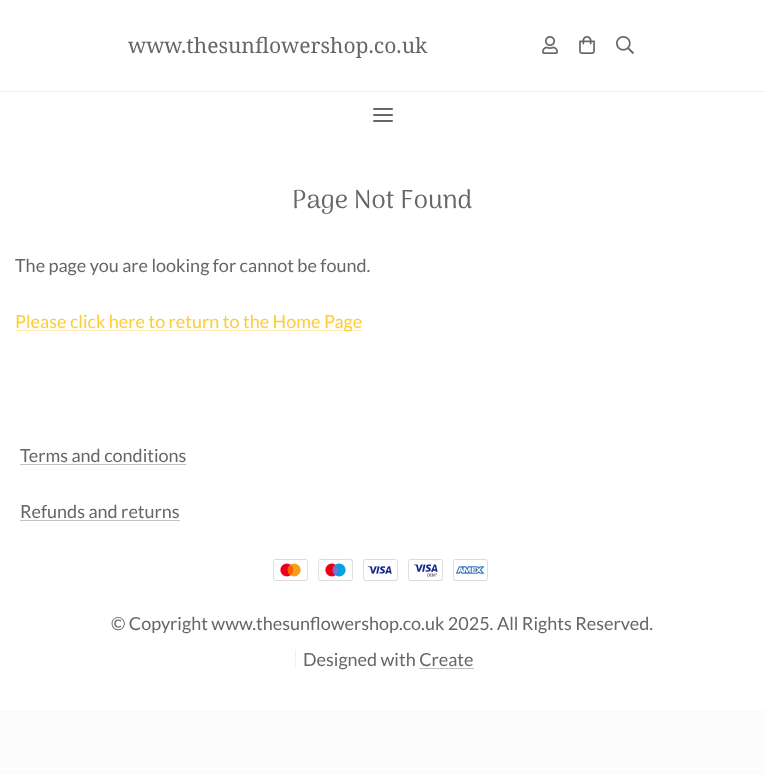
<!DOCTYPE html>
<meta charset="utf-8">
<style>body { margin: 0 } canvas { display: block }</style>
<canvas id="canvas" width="765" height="774"></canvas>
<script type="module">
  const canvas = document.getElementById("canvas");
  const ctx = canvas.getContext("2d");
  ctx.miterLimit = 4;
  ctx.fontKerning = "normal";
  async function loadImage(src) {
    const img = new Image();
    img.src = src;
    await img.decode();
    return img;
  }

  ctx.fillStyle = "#ffffcc";
  ctx.fillRect(0, 0, 765, 774);
  ctx.drawImage(await loadImage("img1.png"), 0, 712, 765, 61);
  ctx.fillStyle = "#ffffff";
  ctx.fillRect(0, 0, 765, 711);
  ctx.font = "21.1px Noto Serif";
  ctx.fillStyle = "#666666";
  ctx.fillText("www.thesunflowershop.co.uk", 128, 53);
  ctx.drawImage(await loadImage("img2.png"), 542, 36, 16, 18);
  ctx.drawImage(await loadImage("img3.png"), 579, 36, 16, 18);
  ctx.drawImage(await loadImage("img4.png"), 616, 36, 18, 18);
  ctx.fillStyle = "#f2f2f2";
  ctx.fillRect(0, 91, 765, 1);
  ctx.fillStyle = "#666666";
  ctx.beginPath();
  ctx.roundRect(373, 114, 20, 2, 1);
  ctx.fill();
  ctx.beginPath();
  ctx.roundRect(373, 108, 20, 2, 1);
  ctx.fill();
  ctx.beginPath();
  ctx.roundRect(373, 120, 20, 2, 1);
  ctx.fill();
  ctx.font = "26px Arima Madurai";
  ctx.fillText("Page Not Found", 292, 208);
  ctx.font = "18px Lato";
  ctx.fillText("The page you are looking for cannot be found.", 15, 272);
  ctx.fillStyle = "#ffebad";
  ctx.fillRect(15, 330, 347, 1);
  ctx.fillStyle = "#ffcc33";
  ctx.fillText("Please click here to return to the Home Page", 15, 328);
  ctx.fillStyle = "#666666";
  ctx.fillText("Terms and conditions", 20, 462);
  ctx.fillStyle = "#c2c2c2";
  ctx.fillRect(20, 464, 166, 1);
  ctx.fillStyle = "#666666";
  ctx.fillText("Refunds and returns", 20, 518);
  ctx.fillStyle = "#c2c2c2";
  ctx.fillRect(20, 520, 160, 1);
  ctx.drawImage(await loadImage("img5.png"), 273, 559, 35, 22);
  ctx.drawImage(await loadImage("img6.png"), 318, 559, 35, 22);
  ctx.drawImage(await loadImage("img7.png"), 363, 559, 35, 22);
  ctx.drawImage(await loadImage("img8.png"), 408, 559, 35, 22);
  ctx.drawImage(await loadImage("img9.png"), 453, 559, 35, 22);
  ctx.fillStyle = "#666666";
  ctx.fillText("© Copyright www.thesunflowershop.co.uk 2025. All Rights Reserved.", 111, 630);
  ctx.fillStyle = "#f2f2f2";
  ctx.fillRect(295, 650, 1, 18);
  ctx.fillStyle = "#666666";
  ctx.fillText("Designed with Create", 303, 666);
  ctx.fillStyle = "#c2c2c2";
  ctx.fillRect(419, 668, 55, 1);
</script>
